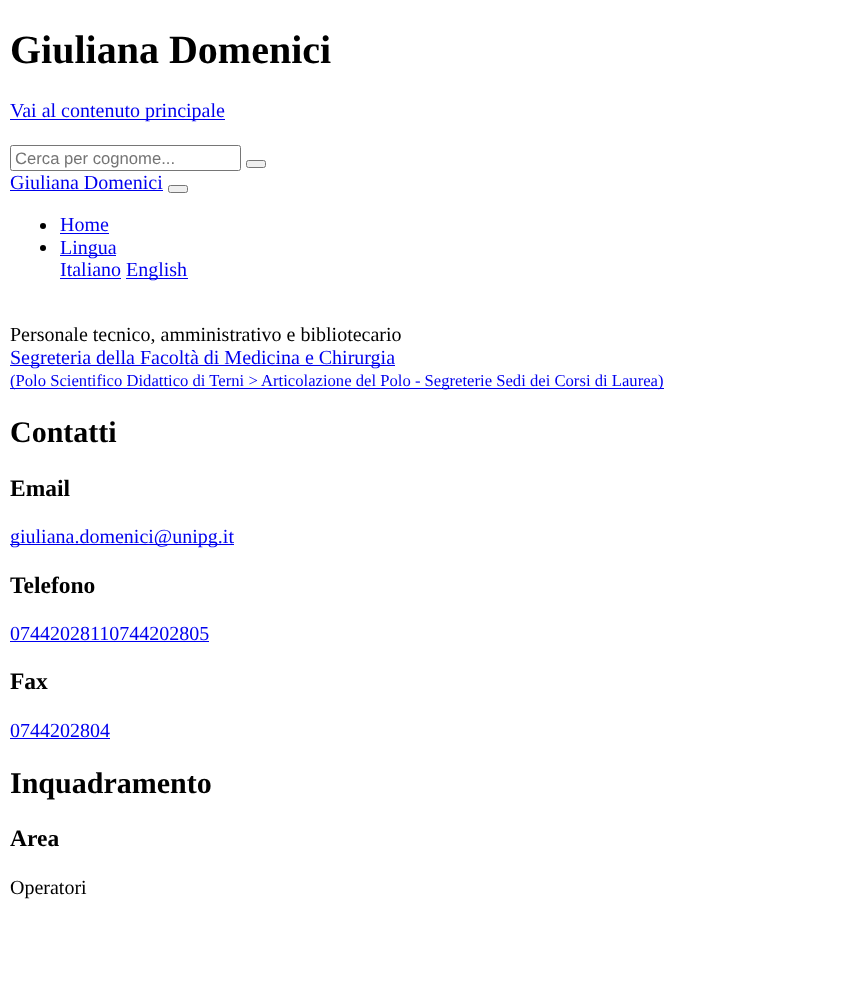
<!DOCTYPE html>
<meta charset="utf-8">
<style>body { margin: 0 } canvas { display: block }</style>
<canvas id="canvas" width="855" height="983"></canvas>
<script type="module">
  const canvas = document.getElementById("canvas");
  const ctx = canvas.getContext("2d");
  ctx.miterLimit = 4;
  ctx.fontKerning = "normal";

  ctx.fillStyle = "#ffffff";
  ctx.fillRect(0, 0, 855, 983);
  ctx.font = "bold 40px Liberation Serif";
  ctx.fillStyle = "#000000";
  ctx.fillText("Giuliana Domenici", 10, 63);
  ctx.fillStyle = "#0000ee";
  ctx.fillRect(10, 119, 215, 1);
  ctx.font = "20px Liberation Serif";
  ctx.fillText("Vai al contenuto principale", 10, 117);
  ctx.beginPath();
  ctx.roundRect(10.5, 145.5, 230, 25, 2);
  ctx.strokeStyle = "#767676";
  ctx.stroke();
  ctx.font = "16.65px Liberation Sans";
  ctx.fillStyle = "#757575";
  ctx.fillText("Cerca per cognome...", 15, 164);
  ctx.fillStyle = "#efefef";
  ctx.beginPath();
  ctx.roundRect(246.5, 160.5, 19, 7, 2);
  ctx.fill();
  ctx.stroke();
  ctx.font = "20px Liberation Serif";
  ctx.fillStyle = "#0000ee";
  ctx.fillText("Giuliana Domenici", 10, 189);
  ctx.fillRect(10, 190, 153, 1);
  ctx.fillStyle = "#efefef";
  ctx.beginPath();
  ctx.roundRect(168.5, 185.5, 19, 7, 2);
  ctx.fill();
  ctx.stroke();
  ctx.fillStyle = "#000000";
  ctx.beginPath();
  ctx.arc(43, 226, 3, 0, Math.PI * 2);
  ctx.fill();
  ctx.fillStyle = "#0000ee";
  ctx.fillText("Home", 60, 231);
  ctx.fillRect(60, 233, 49, 1);
  ctx.fillStyle = "#000000";
  ctx.beginPath();
  ctx.arc(43, 248, 3, 0, Math.PI * 2);
  ctx.fill();
  ctx.fillStyle = "#0000ee";
  ctx.fillRect(60, 255, 56, 1);
  ctx.fillText("Lingua", 60, 254);
  ctx.fillText("Italiano", 60, 276);
  ctx.fillRect(60, 278, 61, 1);
  ctx.fillRect(126, 278, 62, 1);
  ctx.fillText("English", 126, 276);
  ctx.fillStyle = "#000000";
  ctx.fillText("Personale tecnico, amministrativo e bibliotecario", 10, 341);
  ctx.fillStyle = "#0000ee";
  ctx.fillRect(10, 365, 385, 1);
  ctx.fillText("Segreteria della Facoltà di Medicina e Chirurgia", 10, 364);
  ctx.fillRect(10, 388, 654, 1);
  ctx.font = "16.65px Liberation Serif";
  ctx.fillText("(Polo Scientifico Didattico di Terni > Articolazione del Polo - Segreterie Sedi dei Corsi di Laurea)", 10, 386);
  ctx.font = "bold 30px Liberation Serif";
  ctx.fillStyle = "#000000";
  ctx.fillText("Contatti", 10, 442);
  ctx.font = "bold 23.5px Liberation Serif";
  ctx.fillText("Email", 10, 496);
  ctx.fillStyle = "#0000ee";
  ctx.fillRect(10, 544, 224, 1);
  ctx.font = "20px Liberation Serif";
  ctx.fillText("giuliana.domenici@unipg.it", 10, 543);
  ctx.font = "bold 23.5px Liberation Serif";
  ctx.fillStyle = "#000000";
  ctx.fillText("Telefono", 10, 593);
  ctx.font = "20px Liberation Serif";
  ctx.fillStyle = "#0000ee";
  ctx.fillText("07442028110744202805", 10, 640);
  ctx.fillRect(10, 641, 199, 1);
  ctx.font = "bold 23.5px Liberation Serif";
  ctx.fillStyle = "#000000";
  ctx.fillText("Fax", 10, 689);
  ctx.font = "20px Liberation Serif";
  ctx.fillStyle = "#0000ee";
  ctx.fillText("0744202804", 10, 737);
  ctx.fillRect(10, 738, 100, 1);
  ctx.font = "bold 30px Liberation Serif";
  ctx.fillStyle = "#000000";
  ctx.fillText("Inquadramento", 10, 793);
  ctx.font = "bold 23.5px Liberation Serif";
  ctx.fillText("Area", 10, 846);
  ctx.font = "20px Liberation Serif";
  ctx.fillText("Operatori", 10, 894);
</script>
